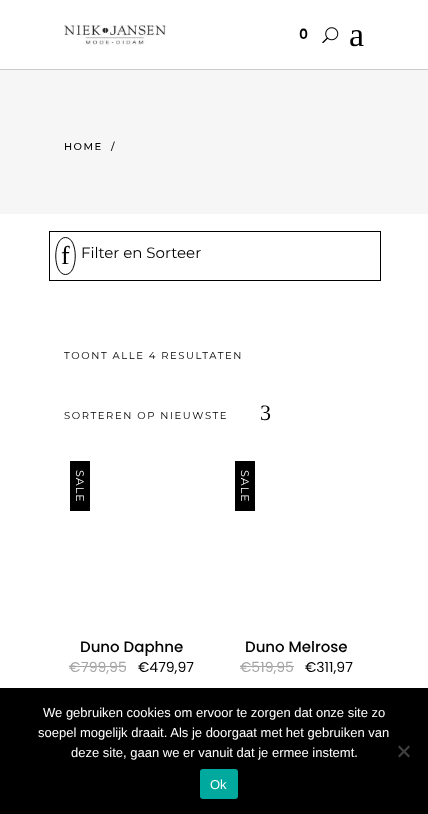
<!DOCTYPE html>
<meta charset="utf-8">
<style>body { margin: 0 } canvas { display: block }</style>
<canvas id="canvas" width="428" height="814"></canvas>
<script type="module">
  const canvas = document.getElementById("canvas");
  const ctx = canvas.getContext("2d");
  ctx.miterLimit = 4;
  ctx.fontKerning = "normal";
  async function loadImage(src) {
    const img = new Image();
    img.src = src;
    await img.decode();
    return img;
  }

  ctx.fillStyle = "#ffffff";
  ctx.fillRect(0, 0, 428, 814);
  ctx.fillStyle = "#cccccc";
  ctx.fillRect(0, 69, 428, 1);
  ctx.drawImage(await loadImage("img1.png"), 64, 25, 102, 20);
  ctx.font = "600 14px Poppins";
  ctx.fillStyle = "#000000";
  ctx.fillText("0", 299, 39);
  ctx.drawImage(await loadImage("img2.png"), 322, 27, 17, 16);
  ctx.font = "34px Liberation Serif";
  ctx.fillText("a", 349, 46);
  ctx.fillStyle = "#f6f6f6";
  ctx.fillRect(0, 70, 428, 144);
  ctx.letterSpacing = "1.5px";
  ctx.font = "100 10px 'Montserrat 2'";
  ctx.fillStyle = "#000000";
  ctx.fillText("HOME", 64, 150);
  ctx.fillText("/", 111, 150);
  ctx.strokeStyle = "#000000";
  ctx.strokeRect(49.5, 231.5, 331, 49);
  ctx.beginPath();
  ctx.moveTo(65.5, 237.5);
  ctx.bezierCurveTo(78.5, 237.5, 78.5, 274.5, 65.5, 274.5);
  ctx.bezierCurveTo(52.5, 274.5, 52.5, 237.5, 65.5, 237.5);
  ctx.closePath();
  ctx.stroke();
  ctx.letterSpacing = "0px";
  ctx.font = "26px Liberation Serif";
  ctx.fillText("f", 61, 264);
  ctx.font = "100 15px Montserrat";
  ctx.fillText("Filter en Sorteer", 81, 258);
  ctx.letterSpacing = "1.6px";
  ctx.font = "100 10px Montserrat";
  ctx.fillText("TOONT ALLE 4 RESULTATEN", 64, 359);
  ctx.fillText("SORTEREN OP NIEUWSTE", 64, 419);
  ctx.font = "22px Liberation Serif";
  ctx.fillText("3", 260, 420);
  ctx.fillRect(70, 461, 20, 50);
  ctx.letterSpacing = "1px";
  ctx.font = "100 11px Montserrat";
  ctx.fillStyle = "#ffffff";
  ctx.save();
  ctx.translate(76, 470);
  ctx.rotate(90 * Math.PI / 180);
  ctx.fillText("SALE", 0, 0);
  ctx.restore();
  ctx.letterSpacing = "0px";
  ctx.font = "500 15px Poppins";
  ctx.fillStyle = "#000000";
  ctx.fillText("Duno Daphne", 80, 652);
  ctx.font = "14px Poppins";
  ctx.fillStyle = "#a5a5a5";
  ctx.fillText("€", 69, 672);
  ctx.fillRect(69, 666, 12, 1);
  ctx.fillText("799,95", 81, 672);
  ctx.fillRect(81, 666, 45, 1);
  ctx.fillStyle = "#000000";
  ctx.fillText("€479,97", 138, 672);
  ctx.fillRect(235, 461, 20, 50);
  ctx.letterSpacing = "1px";
  ctx.font = "100 11px Montserrat";
  ctx.fillStyle = "#ffffff";
  ctx.save();
  ctx.translate(241, 470);
  ctx.rotate(90 * Math.PI / 180);
  ctx.fillText("SALE", 0, 0);
  ctx.restore();
  ctx.letterSpacing = "0px";
  ctx.font = "500 15px Poppins";
  ctx.fillStyle = "#000000";
  ctx.fillText("Duno Melrose", 245, 652);
  ctx.font = "14px Poppins";
  ctx.fillStyle = "#a5a5a5";
  ctx.fillText("€519,95", 240, 672);
  ctx.fillRect(240, 666, 54, 1);
  ctx.fillStyle = "#000000";
  ctx.fillText("€311,97", 305, 672);
  ctx.fillRect(0, 688, 428, 126);
  ctx.font = "13px Liberation Sans";
  ctx.fillStyle = "#ffffff";
  ctx.fillText("We gebruiken cookies om ervoor te zorgen dat onze site zo", 43, 717);
  ctx.fillText("soepel mogelijk draait. Als je doorgaat met het gebruiken van", 38, 737);
  ctx.fillText("deze site, gaan we er vanuit dat je ermee instemt.", 71, 757);
  ctx.fillStyle = "#404040";
  ctx.beginPath();
  ctx.moveTo(408.5, 745.5);
  ctx.lineTo(410, 747);
  ctx.lineTo(399.5, 757.5);
  ctx.lineTo(398, 756);
  ctx.closePath();
  ctx.fill();
  ctx.beginPath();
  ctx.moveTo(398, 747);
  ctx.lineTo(399.5, 745.5);
  ctx.lineTo(410, 756);
  ctx.lineTo(408.5, 757.5);
  ctx.closePath();
  ctx.fill();
  ctx.fillStyle = "#00a99d";
  ctx.beginPath();
  ctx.roundRect(200, 769, 38, 30, 3);
  ctx.fill();
  ctx.fillStyle = "#ffffff";
  ctx.fillText("Ok", 210, 789);
</script>
